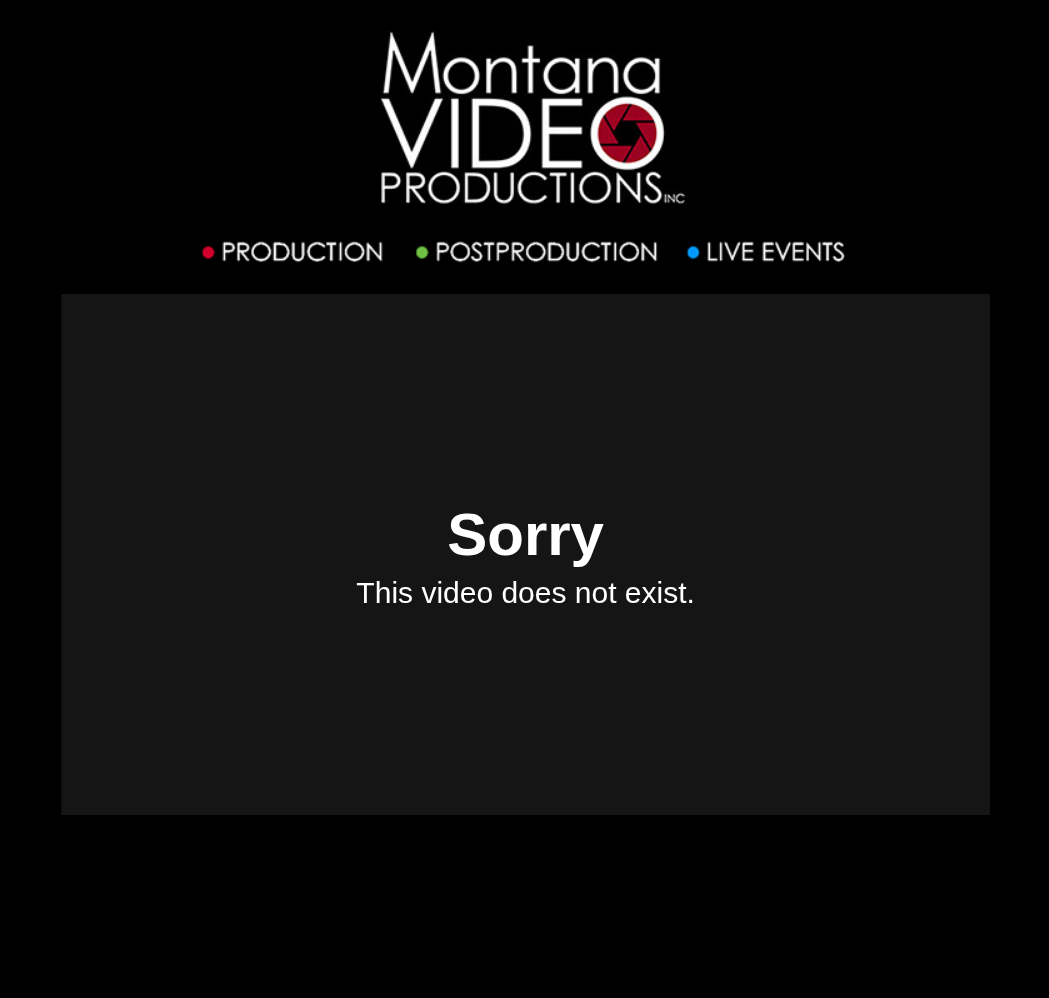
<!DOCTYPE html>
<meta charset="utf-8">
<style>body { margin: 0 } canvas { display: block }</style>
<canvas id="canvas" width="1049" height="998"></canvas>
<script type="module">
  const canvas = document.getElementById("canvas");
  const ctx = canvas.getContext("2d");
  ctx.miterLimit = 4;
  ctx.fontKerning = "normal";
  async function loadImage(src) {
    const img = new Image();
    img.src = src;
    await img.decode();
    return img;
  }

  ctx.fillStyle = "#000000";
  ctx.fillRect(0, 0, 1049, 998);
  ctx.drawImage(await loadImage("img1.png"), 380, 31, 306, 173);
  ctx.drawImage(await loadImage("img2.png"), 202, 241, 181, 22);
  ctx.drawImage(await loadImage("img3.png"), 416, 241, 242, 22);
  ctx.drawImage(await loadImage("img4.png"), 687, 241, 159, 22);
  ctx.drawImage(await loadImage("img5.png"), 61, 294, 929, 521);
</script>
